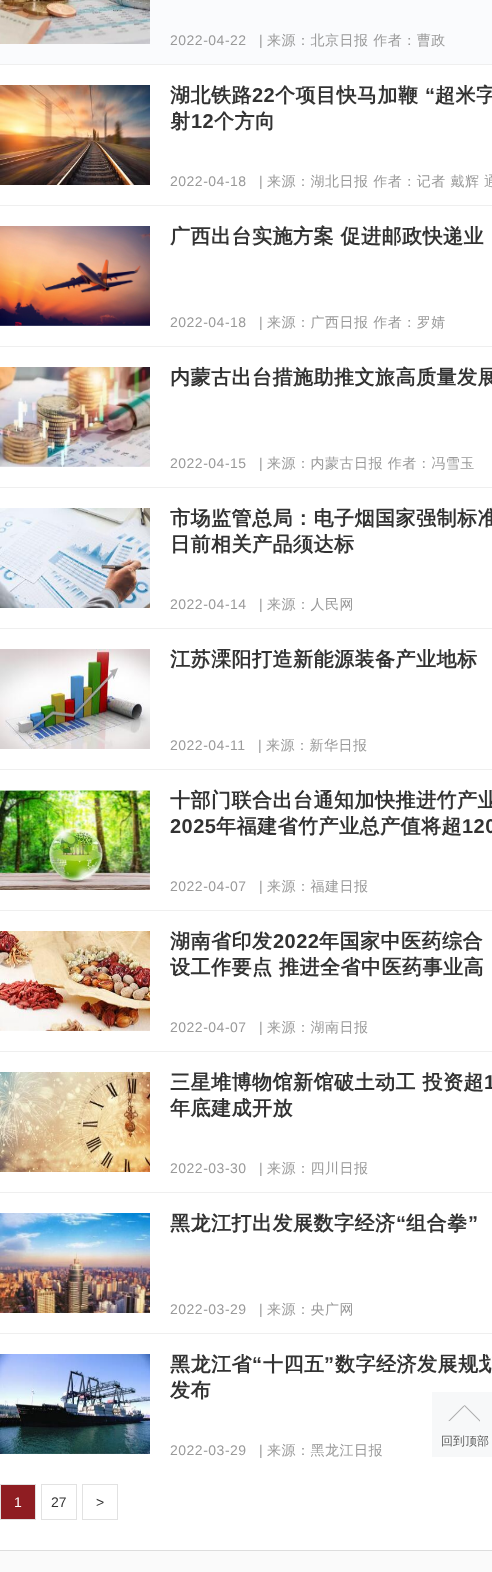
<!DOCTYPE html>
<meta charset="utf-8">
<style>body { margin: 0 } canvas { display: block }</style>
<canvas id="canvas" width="492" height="1572"></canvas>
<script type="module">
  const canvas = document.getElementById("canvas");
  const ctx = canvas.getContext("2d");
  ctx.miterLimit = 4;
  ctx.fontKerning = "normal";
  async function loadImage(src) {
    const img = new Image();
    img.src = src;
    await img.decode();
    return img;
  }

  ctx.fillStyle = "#ffffff";
  ctx.fillRect(0, 0, 492, 1572);
  ctx.fillStyle = "#fafbfd";
  ctx.fillRect(0, 0, 492, 64);
  ctx.fillStyle = "#efefef";
  ctx.fillRect(0, 64, 492, 1);
  ctx.drawImage(await loadImage("img1.png"), 0, 0, 150, 44);
  ctx.letterSpacing = "0.5px";
  ctx.font = "14px Liberation Sans";
  ctx.fillStyle = "#999999";
  ctx.fillText("2022-04-22", 170, 45);
  ctx.fillText("|", 259, 45);
  ctx.font = "500 14px WenQuanYi Zen Hei";
  ctx.fillText("来源：北京日报 作者：曹政", 267, 45);
  ctx.fillStyle = "#efefef";
  ctx.fillRect(0, 205, 492, 1);
  ctx.drawImage(await loadImage("img2.png"), 0, 85, 150, 100);
  ctx.font = "bold 20px WenQuanYi Zen Hei";
  ctx.fillStyle = "#333333";
  ctx.fillText("湖北铁路", 170, 102);
  ctx.font = "bold 20px Liberation Sans";
  ctx.fillText("22", 252, 102);
  ctx.font = "bold 20px WenQuanYi Zen Hei";
  ctx.fillText("个项目快马加鞭", 275, 102);
  ctx.font = "bold 20px Liberation Sans";
  ctx.fillText("“", 425, 102);
  ctx.font = "bold 20px WenQuanYi Zen Hei";
  ctx.fillText("超米字", 435, 102);
  ctx.fillText("射", 170, 128);
  ctx.font = "bold 20px Liberation Sans";
  ctx.fillText("12", 191, 128);
  ctx.font = "bold 20px WenQuanYi Zen Hei";
  ctx.fillText("个方向", 214, 128);
  ctx.font = "14px Liberation Sans";
  ctx.fillStyle = "#999999";
  ctx.fillText("2022-04-18", 170, 186);
  ctx.fillText("|", 259, 186);
  ctx.font = "500 14px WenQuanYi Zen Hei";
  ctx.fillText("来源：湖北日报 作者：记者 戴辉 通", 267, 186);
  ctx.fillStyle = "#efefef";
  ctx.fillRect(0, 346, 492, 1);
  ctx.drawImage(await loadImage("img3.png"), 0, 226, 150, 100);
  ctx.font = "bold 20px WenQuanYi Zen Hei";
  ctx.fillStyle = "#333333";
  ctx.fillText("广西出台实施方案 促进邮政快递业", 170, 243);
  ctx.font = "14px Liberation Sans";
  ctx.fillStyle = "#999999";
  ctx.fillText("2022-04-18", 170, 327);
  ctx.fillText("|", 259, 327);
  ctx.font = "500 14px WenQuanYi Zen Hei";
  ctx.fillText("来源：广西日报 作者：罗婧", 267, 327);
  ctx.fillStyle = "#efefef";
  ctx.fillRect(0, 487, 492, 1);
  ctx.drawImage(await loadImage("img4.png"), 0, 367, 150, 100);
  ctx.font = "bold 20px WenQuanYi Zen Hei";
  ctx.fillStyle = "#333333";
  ctx.fillText("内蒙古出台措施助推文旅高质量发展", 170, 384);
  ctx.font = "14px Liberation Sans";
  ctx.fillStyle = "#999999";
  ctx.fillText("2022-04-15", 170, 468);
  ctx.fillText("|", 259, 468);
  ctx.font = "500 14px WenQuanYi Zen Hei";
  ctx.fillText("来源：内蒙古日报 作者：冯雪玉", 267, 468);
  ctx.fillStyle = "#efefef";
  ctx.fillRect(0, 628, 492, 1);
  ctx.drawImage(await loadImage("img5.png"), 0, 508, 150, 100);
  ctx.font = "bold 20px WenQuanYi Zen Hei";
  ctx.fillStyle = "#333333";
  ctx.fillText("市场监管总局：电子烟国家强制标准", 170, 525);
  ctx.fillText("日前相关产品须达标", 170, 551);
  ctx.font = "14px Liberation Sans";
  ctx.fillStyle = "#999999";
  ctx.fillText("2022-04-14", 170, 609);
  ctx.fillText("|", 259, 609);
  ctx.font = "500 14px WenQuanYi Zen Hei";
  ctx.fillText("来源：人民网", 267, 609);
  ctx.fillStyle = "#efefef";
  ctx.fillRect(0, 769, 492, 1);
  ctx.drawImage(await loadImage("img6.png"), 0, 649, 150, 100);
  ctx.font = "bold 20px WenQuanYi Zen Hei";
  ctx.fillStyle = "#333333";
  ctx.fillText("江苏溧阳打造新能源装备产业地标", 170, 666);
  ctx.font = "14px Liberation Sans";
  ctx.fillStyle = "#999999";
  ctx.fillText("2022-04-11", 170, 750);
  ctx.fillText("|", 258, 750);
  ctx.font = "500 14px WenQuanYi Zen Hei";
  ctx.fillText("来源：新华日报", 266, 750);
  ctx.fillStyle = "#efefef";
  ctx.fillRect(0, 910, 492, 1);
  ctx.drawImage(await loadImage("img7.png"), 0, 790, 150, 100);
  ctx.font = "bold 20px WenQuanYi Zen Hei";
  ctx.fillStyle = "#333333";
  ctx.fillText("十部门联合出台通知加快推进竹产业", 170, 807);
  ctx.font = "bold 20px Liberation Sans";
  ctx.fillText("2025", 170, 833);
  ctx.font = "bold 20px WenQuanYi Zen Hei";
  ctx.fillText("年福建省竹产业总产值将超", 216, 833);
  ctx.font = "bold 20px Liberation Sans";
  ctx.fillText("120", 462, 833);
  ctx.font = "14px Liberation Sans";
  ctx.fillStyle = "#999999";
  ctx.fillText("2022-04-07", 170, 891);
  ctx.fillText("|", 259, 891);
  ctx.font = "500 14px WenQuanYi Zen Hei";
  ctx.fillText("来源：福建日报", 267, 891);
  ctx.fillStyle = "#efefef";
  ctx.fillRect(0, 1051, 492, 1);
  ctx.drawImage(await loadImage("img8.png"), 0, 931, 150, 100);
  ctx.font = "bold 20px WenQuanYi Zen Hei";
  ctx.fillStyle = "#333333";
  ctx.fillText("湖南省印发", 170, 948);
  ctx.font = "bold 20px Liberation Sans";
  ctx.fillText("2022", 273, 948);
  ctx.font = "bold 20px WenQuanYi Zen Hei";
  ctx.fillText("年国家中医药综合", 319, 948);
  ctx.fillText("设工作要点 推进全省中医药事业高", 170, 974);
  ctx.font = "14px Liberation Sans";
  ctx.fillStyle = "#999999";
  ctx.fillText("2022-04-07", 170, 1032);
  ctx.fillText("|", 259, 1032);
  ctx.font = "500 14px WenQuanYi Zen Hei";
  ctx.fillText("来源：湖南日报", 267, 1032);
  ctx.fillStyle = "#efefef";
  ctx.fillRect(0, 1192, 492, 1);
  ctx.drawImage(await loadImage("img9.png"), 0, 1072, 150, 100);
  ctx.font = "bold 20px WenQuanYi Zen Hei";
  ctx.fillStyle = "#333333";
  ctx.fillText("三星堆博物馆新馆破土动工 投资超", 170, 1089);
  ctx.font = "bold 20px Liberation Sans";
  ctx.fillText("1", 484, 1089);
  ctx.font = "bold 20px WenQuanYi Zen Hei";
  ctx.fillText("年底建成开放", 170, 1115);
  ctx.font = "14px Liberation Sans";
  ctx.fillStyle = "#999999";
  ctx.fillText("2022-03-30", 170, 1173);
  ctx.fillText("|", 259, 1173);
  ctx.font = "500 14px WenQuanYi Zen Hei";
  ctx.fillText("来源：四川日报", 267, 1173);
  ctx.fillStyle = "#efefef";
  ctx.fillRect(0, 1333, 492, 1);
  ctx.drawImage(await loadImage("img10.png"), 0, 1213, 150, 100);
  ctx.font = "bold 20px WenQuanYi Zen Hei";
  ctx.fillStyle = "#333333";
  ctx.fillText("黑龙江打出发展数字经济", 170, 1230);
  ctx.font = "bold 20px Liberation Sans";
  ctx.fillText("“", 396, 1230);
  ctx.font = "bold 20px WenQuanYi Zen Hei";
  ctx.fillText("组合拳", 406, 1230);
  ctx.font = "bold 20px Liberation Sans";
  ctx.fillText("”", 468, 1230);
  ctx.font = "14px Liberation Sans";
  ctx.fillStyle = "#999999";
  ctx.fillText("2022-03-29", 170, 1314);
  ctx.fillText("|", 259, 1314);
  ctx.font = "500 14px WenQuanYi Zen Hei";
  ctx.fillText("来源：央广网", 267, 1314);
  ctx.drawImage(await loadImage("img11.png"), 0, 1354, 150, 100);
  ctx.font = "bold 20px WenQuanYi Zen Hei";
  ctx.fillStyle = "#333333";
  ctx.fillText("黑龙江省", 170, 1371);
  ctx.font = "bold 20px Liberation Sans";
  ctx.fillText("“", 252, 1371);
  ctx.font = "bold 20px WenQuanYi Zen Hei";
  ctx.fillText("十四五", 263, 1371);
  ctx.font = "bold 20px Liberation Sans";
  ctx.fillText("”", 324, 1371);
  ctx.font = "bold 20px WenQuanYi Zen Hei";
  ctx.fillText("数字经济发展规划", 335, 1371);
  ctx.fillText("发布", 170, 1397);
  ctx.font = "14px Liberation Sans";
  ctx.fillStyle = "#999999";
  ctx.fillText("2022-03-29", 170, 1455);
  ctx.fillText("|", 259, 1455);
  ctx.font = "500 14px WenQuanYi Zen Hei";
  ctx.fillText("来源：黑龙江日报", 267, 1455);
  ctx.fillStyle = "#8f1d22";
  ctx.beginPath();
  ctx.rect(0.5, 1484.5, 35, 35);
  ctx.fill();
  ctx.strokeStyle = "#e2e2e2";
  ctx.stroke();
  ctx.letterSpacing = "0px";
  ctx.font = "14px Liberation Sans";
  ctx.fillStyle = "#ffffff";
  ctx.fillText("1", 14, 1507);
  ctx.strokeRect(41.5, 1484.5, 35, 35);
  ctx.fillStyle = "#333333";
  ctx.fillText("27", 51, 1507);
  ctx.strokeRect(82.5, 1484.5, 35, 35);
  ctx.fillText(">", 96, 1507);
  ctx.fillStyle = "#f7f8f9";
  ctx.fillRect(432, 1392, 60, 65);
  ctx.drawImage(await loadImage("img12.png"), 448, 1405, 32, 17);
  ctx.font = "500 12px WenQuanYi Zen Hei";
  ctx.fillStyle = "#5c5c5c";
  ctx.fillText("回到顶部", 441, 1445);
  ctx.fillStyle = "#fafafa";
  ctx.fillRect(0, 1551, 492, 21);
  ctx.fillStyle = "#dddddd";
  ctx.fillRect(0, 1550, 492, 1);
</script>
